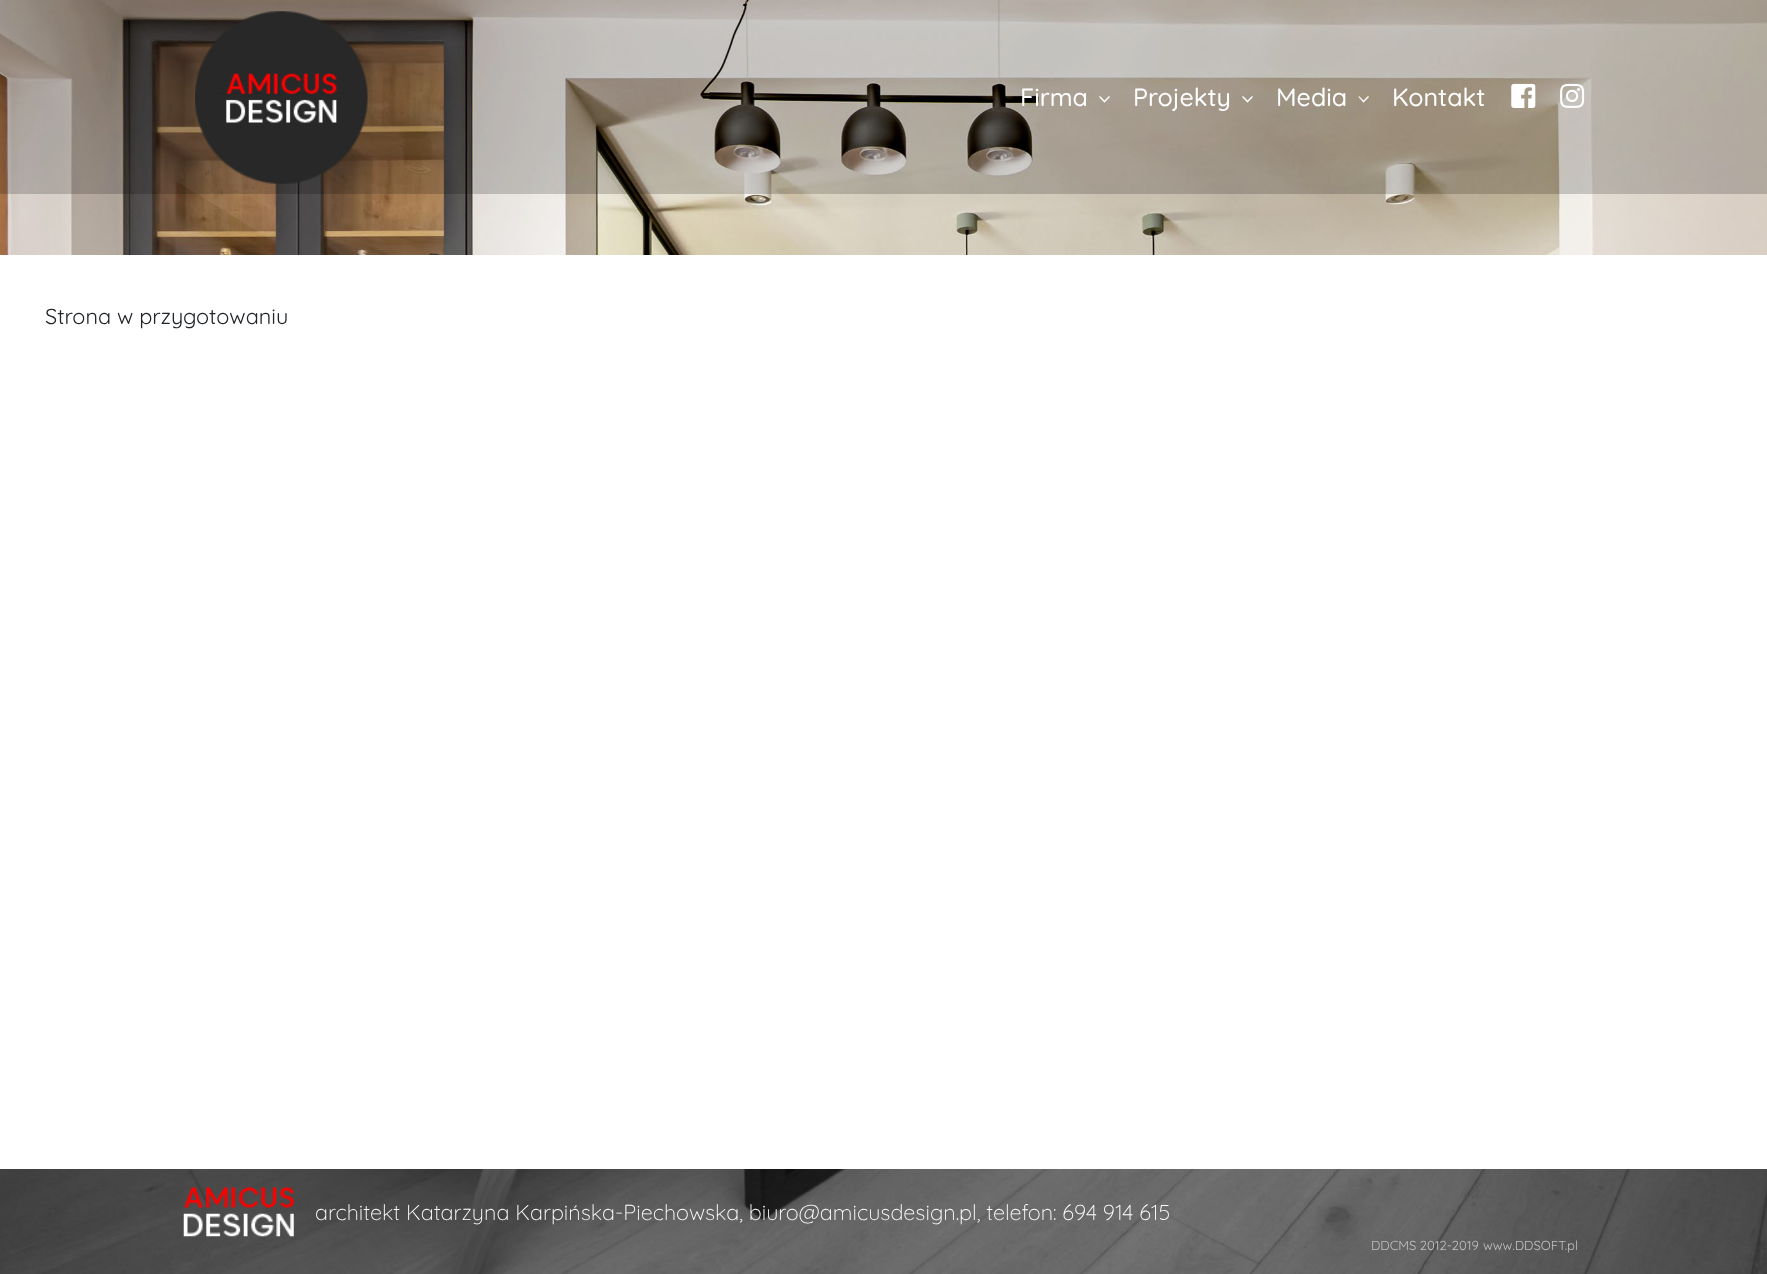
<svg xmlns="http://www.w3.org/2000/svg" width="1767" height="1274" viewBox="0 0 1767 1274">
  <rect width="100%" height="100%" fill="rgb(255,255,255)"/>
  <image x="0" y="0" width="1767" height="255" href="pic1.png"/>
  <rect x="0" y="0" width="1767" height="194" fill="rgba(0,0,0,0.18)"/>
  <image x="195" y="11" width="173" height="173" href="pic2.png"/>
  <text x="1020" y="106" font-family="Quicksand" font-size="25" font-weight="500" fill="rgb(255,255,255)">Firma</text>
  <path d="M1109 96L1110 97L1104.5 102.5L1103.5 101.5Z" fill="rgb(255,255,255)"/>
  <path d="M1100 96L1105.5 101.5L1104.5 102.5L1099 97Z" fill="rgb(255,255,255)"/>
  <text x="1133" y="106" font-family="Quicksand" font-size="25" font-weight="500" fill="rgb(255,255,255)">Projekty</text>
  <path d="M1252 96L1253 97L1247.5 102.5L1246.5 101.5Z" fill="rgb(255,255,255)"/>
  <path d="M1243 96L1248.5 101.5L1247.5 102.5L1242 97Z" fill="rgb(255,255,255)"/>
  <text x="1276" y="106" font-family="Quicksand" font-size="25" font-weight="500" fill="rgb(255,255,255)">Media</text>
  <path d="M1368 96L1369 97L1363.5 102.5L1362.5 101.5Z" fill="rgb(255,255,255)"/>
  <path d="M1359 96L1364.5 101.5L1363.5 102.5L1358.5 97Z" fill="rgb(255,255,255)"/>
  <text x="1392" y="106" font-family="Quicksand" font-size="25" font-weight="500" fill="rgb(255,255,255)">Kontakt</text>
  <image x="1511" y="83" width="25" height="25" href="pic3.png"/>
  <image x="1560" y="83" width="25" height="25" href="pic4.png"/>
  <text x="45" y="324" font-family="Quicksand" font-size="21.65" fill="rgb(33,37,41)">Strona w przygotowaniu</text>
  <image x="0" y="1169" width="1767" height="105" href="pic5.png"/>
  <image x="183" y="1187" width="111" height="50" href="pic6.png"/>
  <text x="315" y="1220" font-family="Quicksand" font-size="21.65" font-weight="300" fill="rgb(255,255,255)">architekt Katarzyna Karpińska-Piechowska, biuro@amicusdesign.pl, telefon: 694 914 615</text>
  <g font-family="Quicksand" font-size="13" fill="rgb(192,192,192)">
    <text x="1371" y="1250">DDCMS 2012-2019</text>
    <text x="1483" y="1250">www.DDSOFT.pl</text>
  </g>
</svg>
